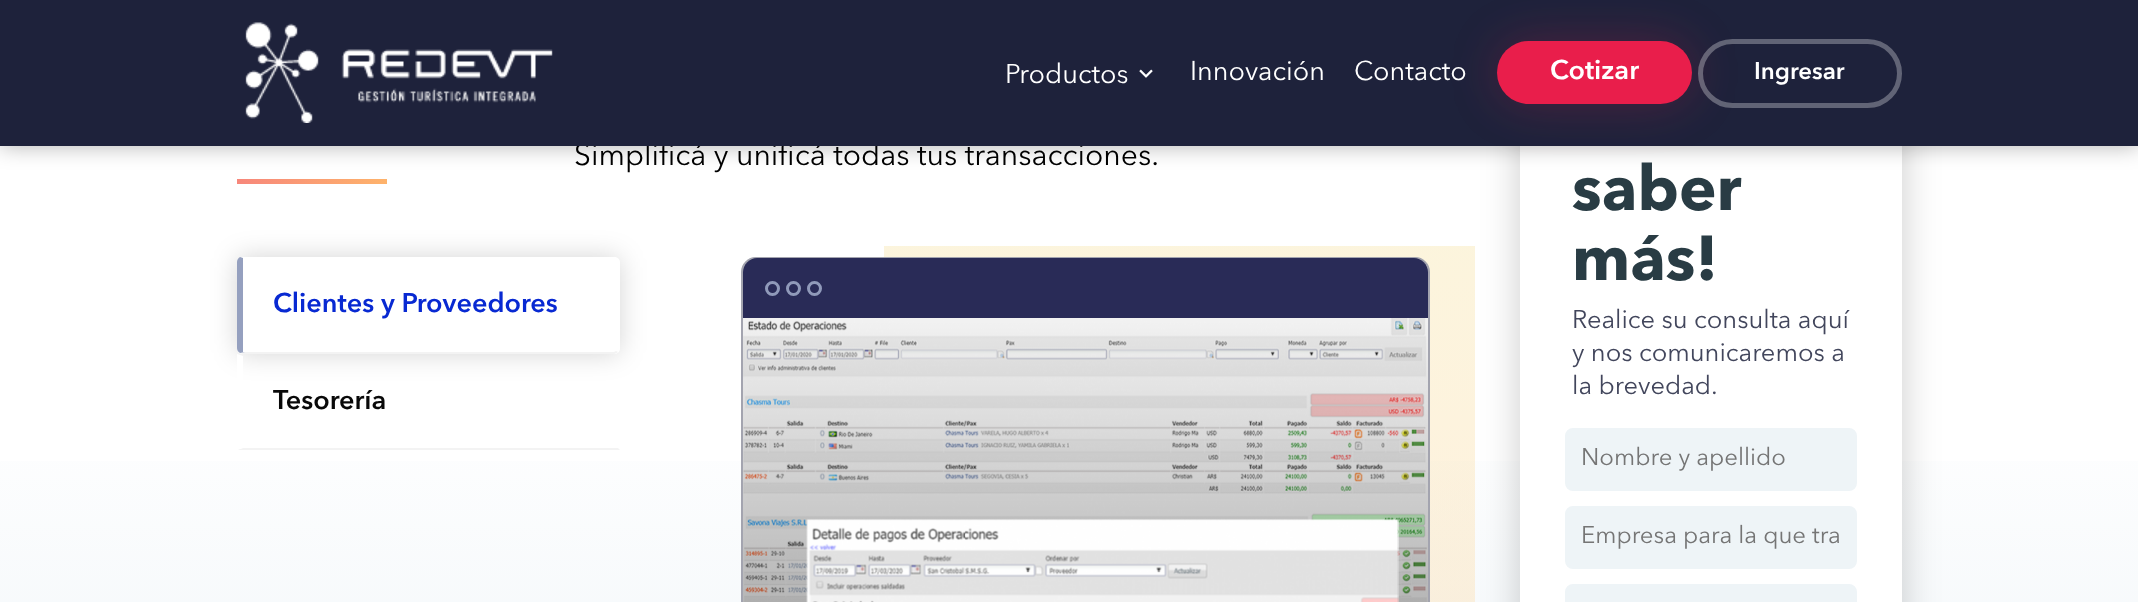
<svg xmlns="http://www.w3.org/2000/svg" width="2138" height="602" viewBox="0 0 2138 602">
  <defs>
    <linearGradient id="g1" gradientUnits="userSpaceOnUse" x1="237" y1="181" x2="387" y2="181"><stop offset="0" stop-color="rgb(247,135,123)"/><stop offset="1" stop-color="rgb(254,179,107)"/></linearGradient>
    <linearGradient id="g2" gradientUnits="userSpaceOnUse" x1="1227" y1="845" x2="1227" y2="395"><stop offset="0" stop-color="rgb(238,244,248)"/><stop offset="1" stop-color="rgb(255,255,255)"/></linearGradient>
    <linearGradient id="g3" gradientUnits="userSpaceOnUse" x1="1179" y1="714" x2="1179" y2="246"><stop offset="0" stop-color="rgb(255,220,175)" stop-opacity="0.4"/><stop offset="1" stop-color="rgb(247,228,169)" stop-opacity="0.4"/></linearGradient>
    <clipPath id="clip1"><path d="M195 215H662V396H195ZM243 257H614C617.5 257 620 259.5 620 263V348C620 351.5 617.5 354 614 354H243C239.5 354 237 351.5 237 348V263C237 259.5 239.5 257 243 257Z" clip-rule="evenodd"/></clipPath>
    <linearGradient id="g4" gradientUnits="userSpaceOnUse" x1="1085" y1="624" x2="1085" y2="258"><stop offset="0" stop-color="rgb(0,0,0)" stop-opacity="0.3"/><stop offset="1" stop-color="rgb(0,0,0)" stop-opacity="0"/></linearGradient>
  </defs>
  <rect width="100%" height="100%" fill="rgb(255,255,255)"/>
  <rect x="237" y="179" width="150" height="5" fill="url(#g1)"/>
  <rect x="0" y="461" width="2138" height="141" fill="url(#g2)"/>
  <rect x="884" y="246" width="591" height="356" fill="url(#g3)"/>
  <rect x="1520" y="45" width="382" height="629" rx="15" fill="rgba(0,0,0,0.2)" filter="blur(19px)"/>
  <rect x="1520" y="146" width="382" height="456" fill="rgb(255,255,255)"/>
  <rect x="0" y="0" width="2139" height="146" fill="rgba(0,0,0,0.3)" filter="blur(11px)"/>
  <text x="574" y="165" font-family="Avenir Next" font-size="30" fill="rgb(0,0,0)">Simplificá y unificá todas tus transacciones.</text>
  <rect x="0" y="0" width="2138" height="146" fill="rgb(30,34,59)"/>
  <image x="245" y="22" width="308" height="101" href="pic1.png"/>
  <text x="1005" y="83" font-family="Avenir Next" font-size="27" fill="rgb(255,255,255)">Productos</text>
  <image x="1139" y="69" width="14" height="9" href="pic2.png"/>
  <text x="1190" y="80" font-family="Avenir Next" font-size="27" fill="rgb(255,255,255)">Innovación</text>
  <rect x="1497" y="41" width="195" height="63" rx="31.5" fill="rgba(233,30,75,0.23)" filter="blur(24px)"/>
  <text x="1354" y="80" font-family="Avenir Next" font-size="27" fill="rgb(255,255,255)">Contacto</text>
  <rect x="1497" y="41" width="195" height="63" rx="31.5" fill="rgb(233,30,75)"/>
  <text x="1550" y="79" font-family="Avenir Next" font-size="27" font-weight="600" fill="rgb(255,255,255)">Cotizar</text>
  <rect x="1700.5" y="41.5" width="199" height="64" rx="32" fill="none" stroke="rgba(255,255,255,0.3)" stroke-width="5"/>
  <text x="1754" y="79" font-family="Avenir Next" font-size="24" font-weight="600" fill="rgb(255,255,255)">Ingresar</text>
  <g clip-path="url(#clip1)">
    <rect x="237" y="257" width="383" height="97" rx="6" fill="rgba(0,0,0,0.17)" filter="blur(13.5px)"/>
  </g>
  <rect x="237" y="257" width="383" height="97" rx="6" fill="rgba(255,255,255,0.9)"/>
  <path d="M243 354H614C615 354 617 353 618 352L616 351L614 352H245L240 353Z" fill="rgb(243,243,243)"/>
  <path d="M243 258L240 257C238 258 237 260 237 262V348C237 350 238 352 240 353L245 352H243Z" fill="rgb(149,160,191)"/>
  <text x="273" y="312" font-family="Avenir Next" font-size="27" font-weight="600" fill="rgb(8,41,210)">Clientes y Proveedores</text>
  <path d="M620 450H237L243 448H618Z" fill="rgb(243,243,243)"/>
  <path d="M237 450V354L243 356V448Z" fill="rgb(255,255,255)"/>
  <text x="273" y="409" font-family="Avenir Next" font-size="27" font-weight="600" fill="rgb(9,9,9)">Tesorería</text>
  <rect x="741" y="257" width="689" height="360" rx="15" fill="rgb(204,204,204)"/>
  <rect x="742" y="258" width="687" height="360" rx="14" fill="none" stroke="rgba(41,43,87,0.25)" stroke-width="2"/>
  <path d="M757 258H1414C1421.5 258 1428 264.5 1428 272V318H743V272C743 264.5 749.5 258 757 258Z" fill="rgb(41,43,87)"/>
  <circle cx="772.5" cy="288.5" r="6" fill="none" stroke="rgb(144,154,186)" stroke-width="3"/>
  <circle cx="793.5" cy="288.5" r="6" fill="none" stroke="rgb(144,154,186)" stroke-width="3"/>
  <circle cx="814.5" cy="288.5" r="6" fill="none" stroke="rgb(144,154,186)" stroke-width="3"/>
  <image x="743" y="318" width="685" height="284" href="pic3.png"/>
  <rect x="743" y="318" width="685" height="284" fill="url(#g4)"/>
  <image x="806" y="518" width="593" height="84" href="pic4.png"/>
  <g font-family="Avenir Next" font-size="63" font-weight="bold" fill="rgb(41,60,68)">
    <text>
      <tspan x="1572" y="210">saber</tspan>
      <tspan x="1572" y="280">más!</tspan>
    </text>
  </g>
  <g font-family="Avenir Next" font-size="25.5" fill="rgb(66,70,92)">
    <text>
      <tspan x="1572" y="328">Realice su consulta aquí</tspan>
      <tspan x="1572" y="361">y nos comunicaremos a</tspan>
      <tspan x="1572" y="394">la brevedad.</tspan>
    </text>
  </g>
  <rect x="1566" y="429" width="290" height="61" rx="7" fill="rgb(238,244,247)" stroke="rgb(238,244,247)" stroke-width="2"/>
  <text x="1581" y="465" font-family="Avenir Next" font-size="24" fill="rgb(117,117,117)">Nombre y apellido</text>
  <rect x="1566" y="507" width="290" height="61" rx="7" fill="rgb(238,244,247)" stroke="rgb(238,244,247)" stroke-width="2"/>
  <text x="1581" y="543" font-family="Avenir Next" font-size="24" fill="rgb(117,117,117)">Empresa para la que tra</text>
  <rect x="1566" y="585" width="290" height="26" rx="7" fill="rgb(238,244,247)" stroke="rgb(238,244,247)" stroke-width="2"/>
</svg>
